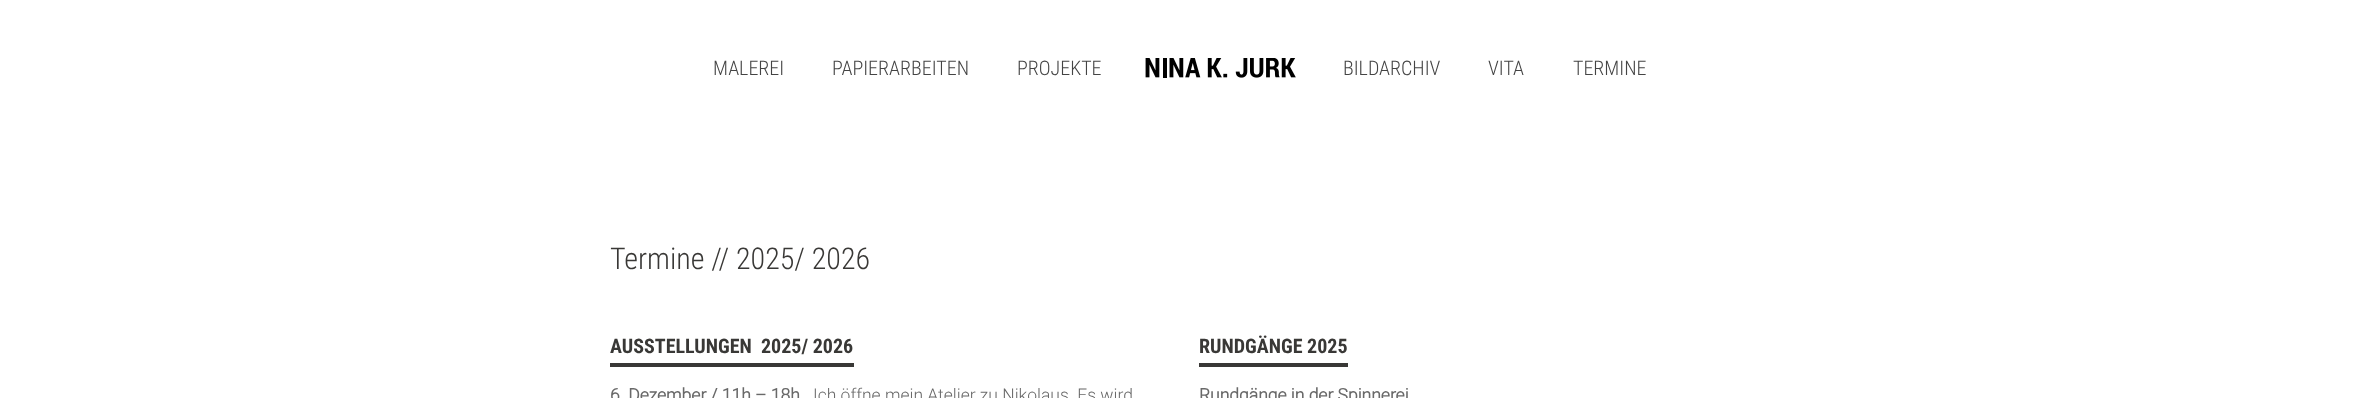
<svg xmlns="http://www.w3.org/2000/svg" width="2359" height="398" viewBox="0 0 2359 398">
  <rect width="100%" height="100%" fill="rgb(255,255,255)"/>
  <g font-family="Roboto Condensed" font-size="20" font-weight="300" fill="rgb(68,68,68)">
    <text x="713" y="75">MALEREI</text>
    <text x="832" y="75">PAPIERARBEITEN</text>
    <text x="1017" y="75">PROJEKTE</text>
  </g>
  <image x="1145" y="58" width="151" height="20" href="pic1.png"/>
  <g font-family="Roboto Condensed" font-size="20" font-weight="300" fill="rgb(68,68,68)">
    <text x="1343" y="75">BILDARCHIV</text>
    <text x="1488" y="75">VITA</text>
    <text x="1573" y="75">TERMINE</text>
  </g>
  <text x="610" y="269" font-family="Roboto Condensed" font-size="30" font-weight="300" fill="rgb(57,56,54)">Termine // 2025/ 2026</text>
  <text x="610" y="353" font-family="Roboto Condensed" font-size="20" font-weight="bold" fill="rgb(57,56,54)" xml:space="preserve">AUSSTELLUNGEN  2025/ 2026</text>
  <rect x="610" y="363" width="244" height="4" fill="rgb(57,56,54)"/>
  <text x="610" y="401" font-family="Roboto" font-size="17.5" font-weight="bold" fill="rgb(105,105,105)">6. Dezember / 11h – 18h</text>
  <text x="813" y="401" font-family="Roboto" font-size="17.5" font-weight="300" fill="rgb(105,105,105)">Ich öffne mein Atelier zu Nikolaus. Es wird</text>
  <text x="1199" y="353" font-family="Roboto Condensed" font-size="20" font-weight="bold" fill="rgb(57,56,54)">RUNDGÄNGE 2025</text>
  <rect x="1199" y="363" width="149" height="4" fill="rgb(57,56,54)"/>
  <text x="1199" y="401" font-family="Roboto" font-size="17.5" font-weight="bold" fill="rgb(105,105,105)">Rundgänge in der Spinnerei</text>
</svg>
